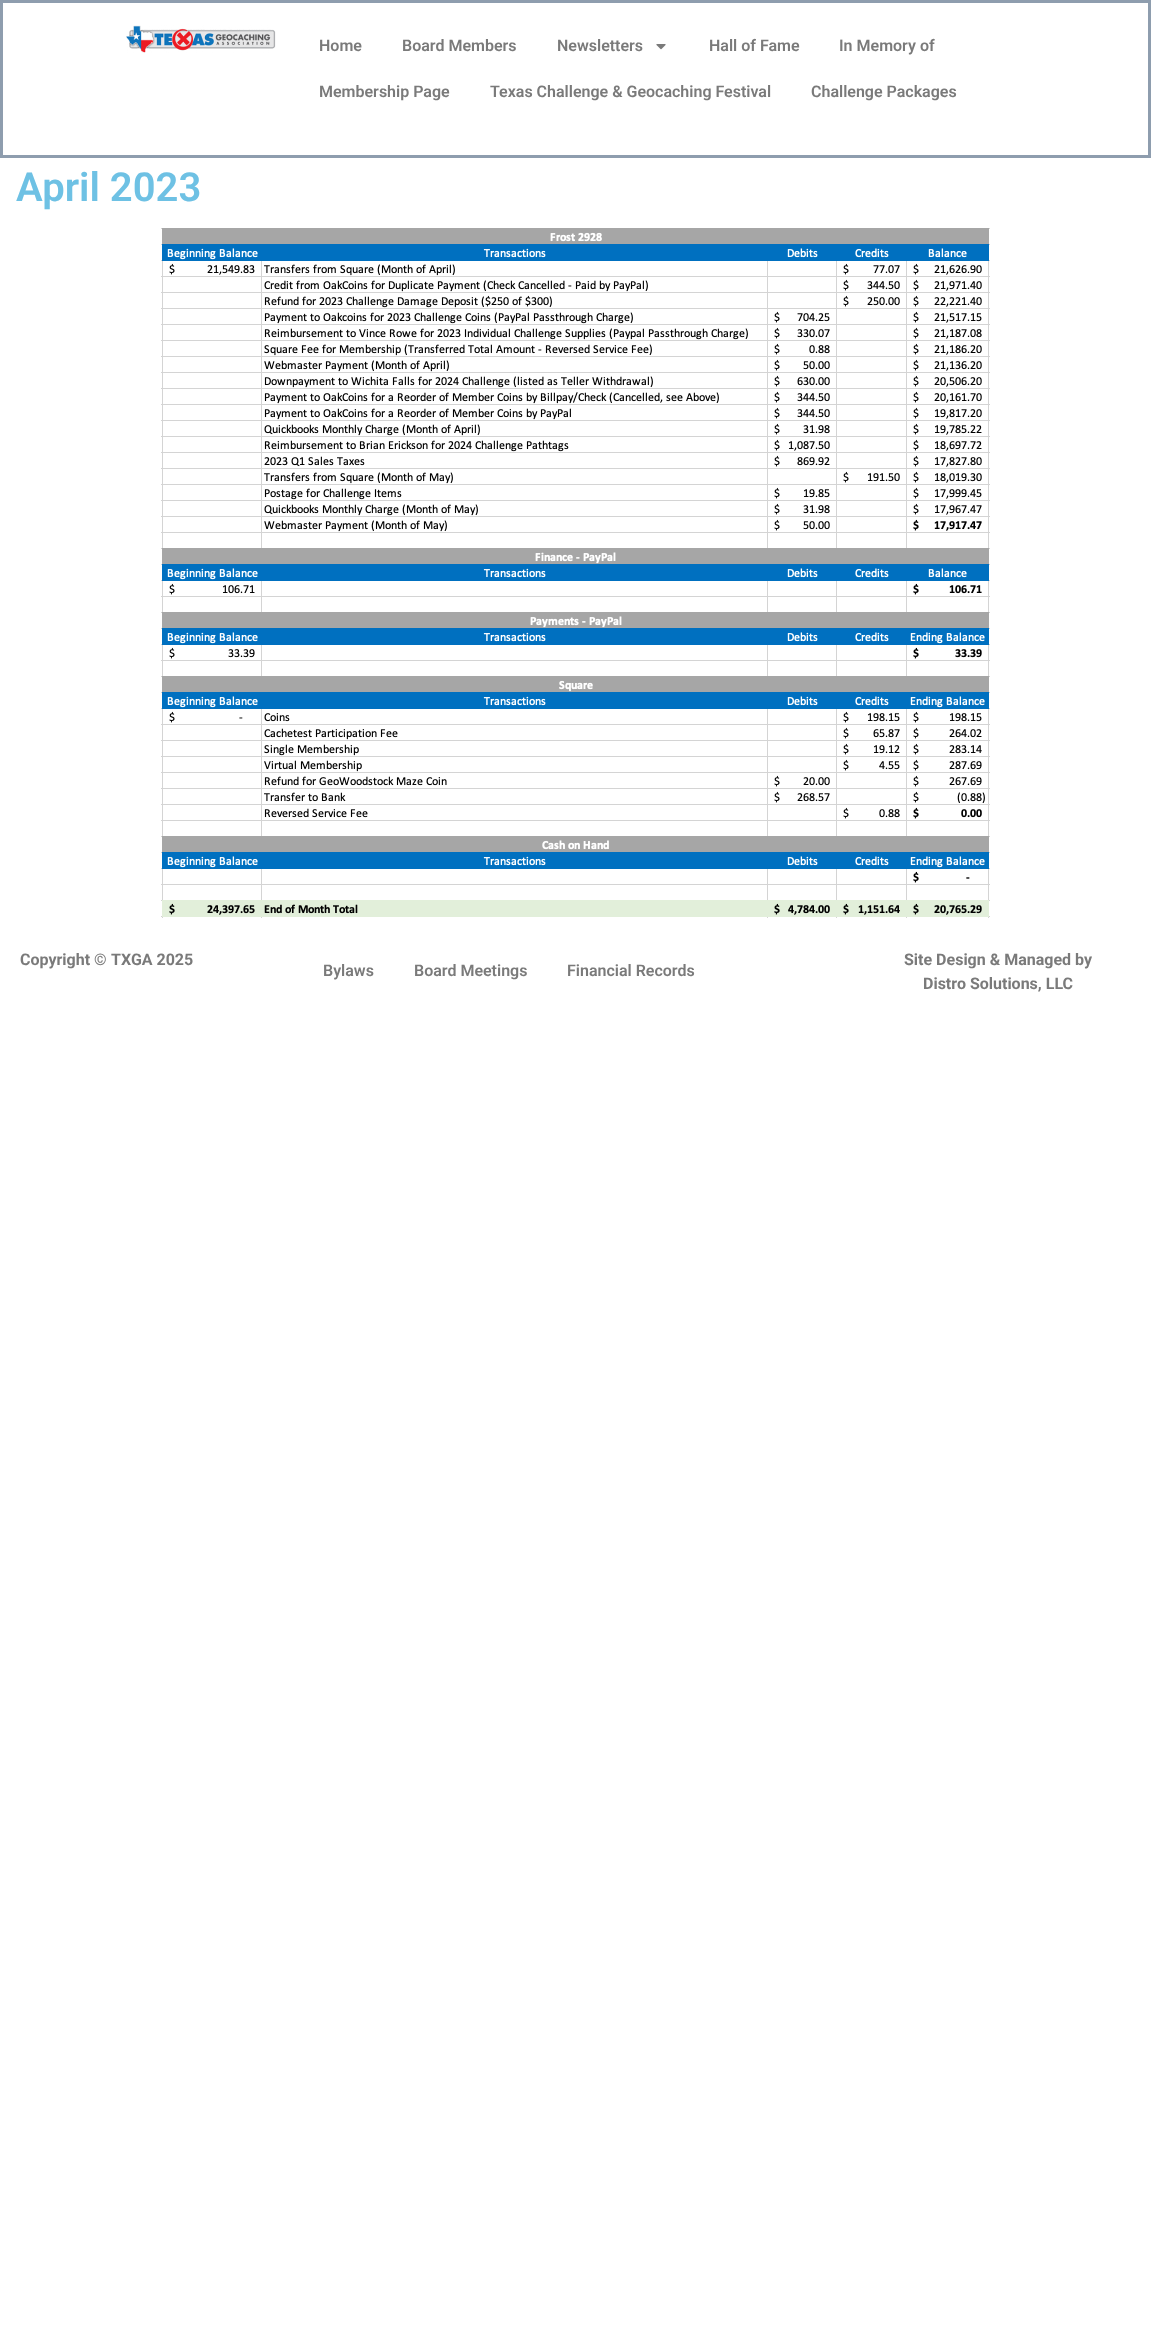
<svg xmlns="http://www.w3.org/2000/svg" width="1151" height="2350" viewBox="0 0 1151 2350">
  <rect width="100%" height="100%" fill="rgb(255,255,255)"/>
  <rect x="1.5" y="1.5" width="1148" height="155" fill="none" stroke="rgb(142,157,174)" stroke-width="3"/>
  <image x="126" y="25" width="150" height="28" href="pic1.png"/>
  <g font-family="Roboto" font-size="16" font-weight="600" fill="rgb(122,122,122)">
    <text x="319" y="51">Home</text>
    <text x="402" y="51">Board Members</text>
    <text x="557" y="51">Newsletters</text>
  </g>
  <image x="656" y="44" width="10" height="6" href="pic2.png"/>
  <g font-family="Roboto" font-size="16" font-weight="600" fill="rgb(122,122,122)">
    <text x="709" y="51">Hall of Fame</text>
    <text x="839" y="51">In Memory of</text>
    <text x="319" y="97">Membership Page</text>
    <text x="490" y="97">Texas Challenge &amp; Geocaching Festival</text>
    <text x="811" y="97">Challenge Packages</text>
  </g>
  <text x="16" y="201" font-family="Roboto" font-size="40" font-weight="600" fill="rgb(110,193,228)">April 2023</text>
  <image x="161" y="228" width="829" height="690" href="pic3.png"/>
  <text x="20" y="965" font-family="Roboto" font-size="16" font-weight="bold" fill="rgb(122,122,122)">Copyright</text>
  <text x="94" y="965" font-family="Roboto" font-size="16" fill="rgb(122,122,122)">©</text>
  <text x="111" y="965" font-family="Roboto" font-size="16" font-weight="bold" fill="rgb(122,122,122)">TXGA 2025</text>
  <g font-family="Roboto" font-size="16" font-weight="600" fill="rgb(122,122,122)">
    <text x="323" y="976">Bylaws</text>
    <text x="414" y="976">Board Meetings</text>
    <text x="567" y="976">Financial Records</text>
  </g>
  <g font-family="Roboto" font-size="16" font-weight="bold" fill="rgb(122,122,122)">
    <text x="904" y="965">Site Design &amp; Managed by</text>
    <text x="923" y="989">Distro Solutions, LLC</text>
  </g>
</svg>
